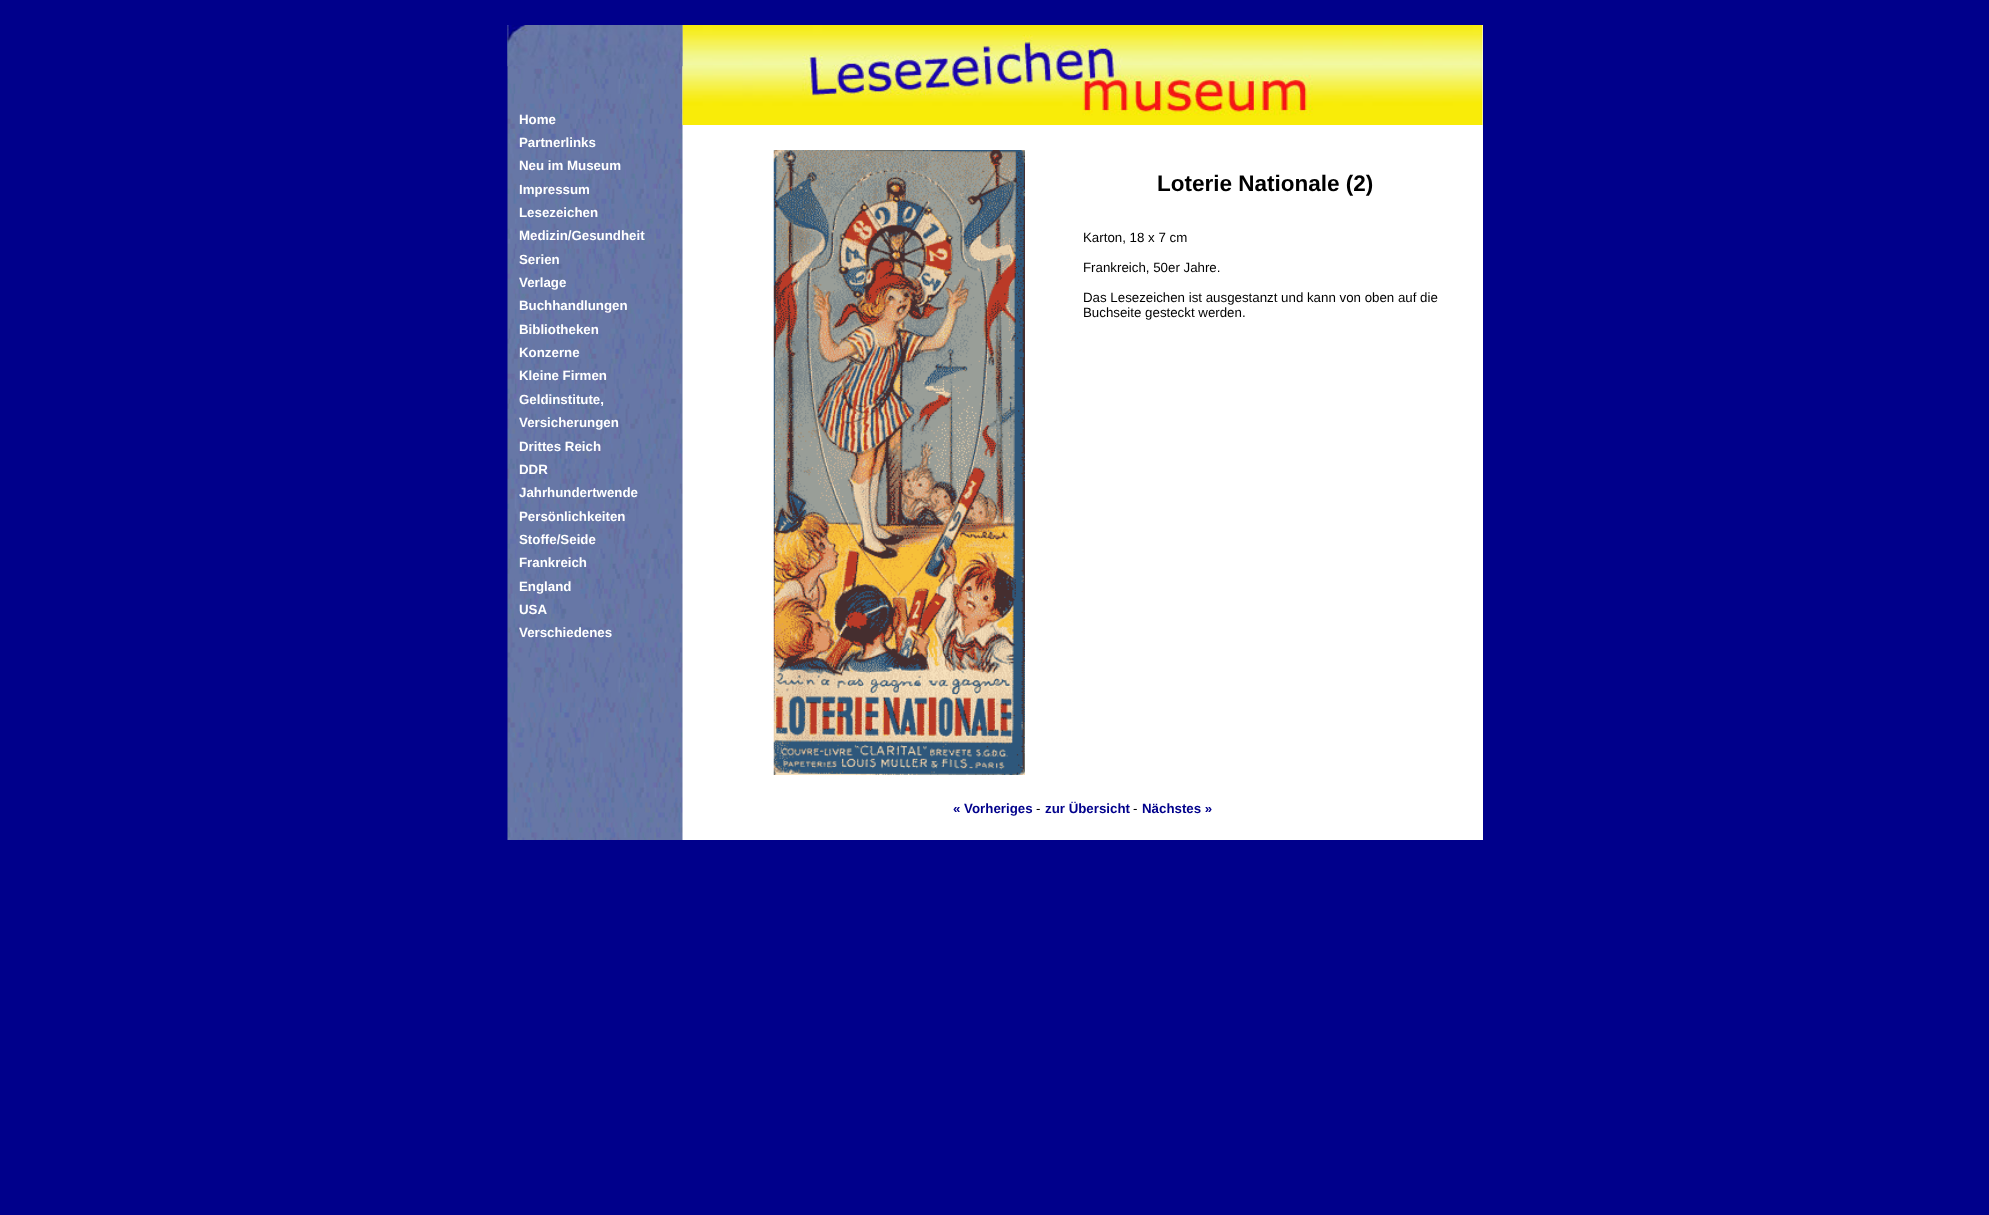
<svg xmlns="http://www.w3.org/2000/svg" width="1989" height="1215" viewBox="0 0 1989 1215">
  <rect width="100%" height="100%" fill="rgb(0,0,139)"/>
  <rect x="682" y="25" width="801" height="815" fill="rgb(255,255,255)"/>
  <image x="507" y="25" width="176" height="815" href="pic1.png"/>
  <image x="682" y="25" width="801" height="100" href="pic3.png"/>
  <image x="507" y="25" width="176" height="42" href="pic2.png"/>
  <g font-family="Liberation Sans" font-size="13.3" font-weight="bold" fill="rgb(255,255,255)">
    <text>
      <tspan x="519" y="124">Home</tspan>
      <tspan x="519" y="147">Partnerlinks</tspan>
      <tspan x="519" y="170">Neu im Museum</tspan>
      <tspan x="519" y="194">Impressum</tspan>
      <tspan x="519" y="217">Lesezeichen</tspan>
      <tspan x="519" y="240">Medizin/Gesundheit</tspan>
      <tspan x="519" y="264">Serien</tspan>
      <tspan x="519" y="287">Verlage</tspan>
      <tspan x="519" y="310">Buchhandlungen</tspan>
      <tspan x="519" y="334">Bibliotheken</tspan>
      <tspan x="519" y="357">Konzerne</tspan>
      <tspan x="519" y="380">Kleine Firmen</tspan>
      <tspan x="519" y="404">Geldinstitute,</tspan>
      <tspan x="519" y="427">Versicherungen</tspan>
      <tspan x="519" y="451">Drittes Reich</tspan>
      <tspan x="519" y="474">DDR</tspan>
      <tspan x="519" y="497">Jahrhundertwende</tspan>
      <tspan x="519" y="521">Persönlichkeiten</tspan>
      <tspan x="519" y="544">Stoffe/Seide</tspan>
      <tspan x="519" y="567">Frankreich</tspan>
      <tspan x="519" y="591">England</tspan>
      <tspan x="519" y="614">USA</tspan>
      <tspan x="519" y="637">Verschiedenes</tspan>
    </text>
  </g>
  <image x="773" y="150" width="252" height="625" href="pic4.png"/>
  <text x="1157" y="191" font-family="Liberation Sans" font-size="22.5" font-weight="bold" fill="rgb(0,0,0)">Loterie Nationale (2)</text>
  <g font-family="Liberation Sans" font-size="13.3" fill="rgb(0,0,0)">
    <text x="1083" y="242">Karton, 18 x 7 cm</text>
    <text x="1083" y="272">Frankreich, 50er Jahre.</text>
    <text>
      <tspan x="1083" y="302">Das Lesezeichen ist ausgestanzt und kann von oben auf die</tspan>
      <tspan x="1083" y="317">Buchseite gesteckt werden.</tspan>
    </text>
  </g>
  <text x="953" y="813" font-family="Liberation Sans" font-size="13.3" font-weight="bold" fill="rgb(0,0,139)">« Vorheriges</text>
  <text x="1036" y="813" font-family="Liberation Sans" font-size="13.3" fill="rgb(0,0,0)">-</text>
  <text x="1045" y="813" font-family="Liberation Sans" font-size="13.3" font-weight="bold" fill="rgb(0,0,139)">zur Übersicht</text>
  <text x="1133" y="813" font-family="Liberation Sans" font-size="13.3" fill="rgb(0,0,0)">-</text>
  <text x="1142" y="813" font-family="Liberation Sans" font-size="13.3" font-weight="bold" fill="rgb(0,0,139)">Nächstes »</text>
</svg>
